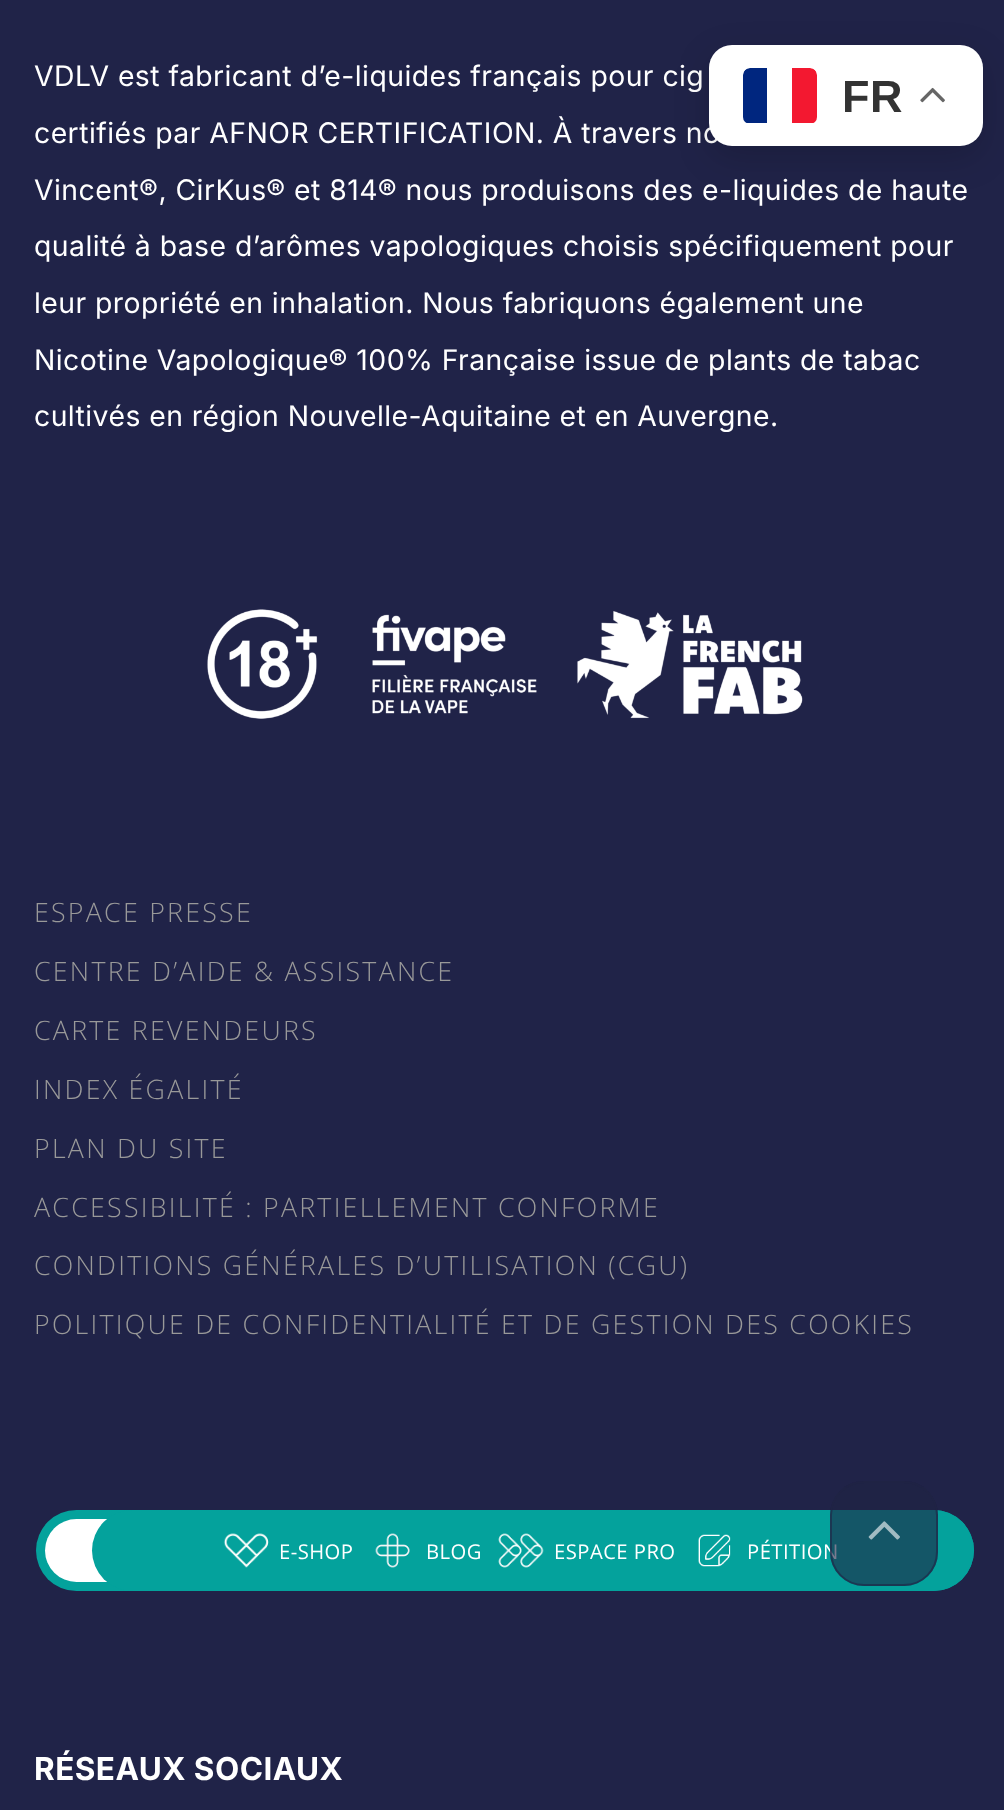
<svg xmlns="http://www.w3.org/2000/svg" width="1004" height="1810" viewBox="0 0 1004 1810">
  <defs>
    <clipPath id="clip1"><rect x="743" y="68" width="74" height="56" rx="7"/></clipPath>
  </defs>
  <rect width="100%" height="100%" fill="rgb(32,35,72)"/>
  <g font-family="Inter" font-size="28.35" letter-spacing="0.45" fill="rgb(255,255,255)">
    <text x="34" y="86">VDLV est fabricant d’e-liquides français pour cig</text>
    <text x="34" y="143">certifiés par AFNOR CERTIFICATION. À travers no</text>
    <text>
      <tspan x="34" y="200">Vincent®, CirKus® et 814® nous produisons des e-liquides de haute</tspan>
      <tspan x="34" y="256">qualité à base d’arômes vapologiques choisis spécifiquement pour</tspan>
    </text>
    <text x="34" y="313">leur propriété en inhalation. Nous fabriquons également une</text>
    <text>
      <tspan x="34" y="370">Nicotine Vapologique® 100% Française issue de plants de tabac</tspan>
      <tspan x="34" y="426">cultivés en région Nouvelle-Aquitaine et en Auvergne.</tspan>
    </text>
  </g>
  <image x="207" y="609" width="596" height="110" href="pic1.png"/>
  <g font-family="Open Sans" font-size="26.75" font-weight="300" letter-spacing="2.25" fill="rgb(153,153,153)">
    <text x="34" y="922">ESPACE PRESSE</text>
    <text x="34" y="981">CENTRE D’AIDE &amp; ASSISTANCE</text>
    <text x="34" y="1040">CARTE REVENDEURS</text>
    <text x="34" y="1099">INDEX ÉGALITÉ</text>
    <text x="34" y="1158">PLAN DU SITE</text>
    <text x="34" y="1217">ACCESSIBILITÉ : PARTIELLEMENT CONFORME</text>
    <text x="34" y="1275">CONDITIONS GÉNÉRALES D’UTILISATION (CGU)</text>
    <text x="34" y="1334">POLITIQUE DE CONFIDENTIALITÉ ET DE GESTION DES COOKIES</text>
  </g>
  <rect x="36" y="1510" width="938" height="81" rx="40.5" fill="rgb(4,162,156)"/>
  <rect x="45" y="1519" width="135" height="63" rx="31.5" fill="rgb(255,255,255)"/>
  <rect x="92" y="1510" width="882" height="81" rx="40.5" fill="rgb(4,162,156)"/>
  <image x="223" y="1533" width="46" height="35" href="pic2.png"/>
  <text x="279" y="1559" font-family="Open Sans" font-size="20.25" letter-spacing="0.45" fill="rgb(255,255,255)">E-SHOP</text>
  <image x="375" y="1533" width="35" height="35" href="pic3.png"/>
  <text x="426" y="1559" font-family="Open Sans" font-size="20.25" letter-spacing="0.45" fill="rgb(255,255,255)">BLOG</text>
  <image x="498" y="1533" width="46" height="35" href="pic4.png"/>
  <text x="554" y="1559" font-family="Open Sans" font-size="20.25" letter-spacing="0.45" fill="rgb(255,255,255)">ESPACE PRO</text>
  <image x="698" y="1534" width="33" height="33" href="pic5.png"/>
  <text x="747" y="1559" font-family="Open Sans" font-size="20.25" letter-spacing="0.45" fill="rgb(255,255,255)">PÉTITION</text>
  <text x="34" y="1780" font-family="Inter" font-size="31.5" font-weight="bold" letter-spacing="0.45" fill="rgb(255,255,255)">RÉSEAUX SOCIAUX</text>
  <rect x="709" y="56" width="274" height="102" rx="23" fill="rgba(0,0,0,0.15)" filter="blur(17px)"/>
  <rect x="709" y="45" width="274" height="101" rx="23" fill="rgb(255,255,255)"/>
  <g clip-path="url(#clip1)">
    <path d="M750 68H767V123H743V75C743 71 746 68 750 68Z" fill="rgb(0,38,127)"/>
    <path d="M792 68H810C814 68 817 71 817 75V123H792Z" fill="rgb(243,24,48)"/>
  </g>
  <text x="842" y="112" font-family="Liberation Sans" font-size="45" font-weight="bold" letter-spacing="0.45" fill="rgb(51,51,51)">FR</text>
  <image x="920" y="87" width="25" height="16" href="pic6.png"/>
  <rect x="830" y="1481" width="108" height="105" rx="34" fill="rgba(32,35,68,0.6)"/>
  <rect x="831" y="1482" width="106" height="103" rx="33" fill="none" stroke="rgba(32,35,68,0.6)" stroke-width="2"/>
  <image x="868" y="1521" width="32" height="19" href="pic7.png"/>
</svg>
